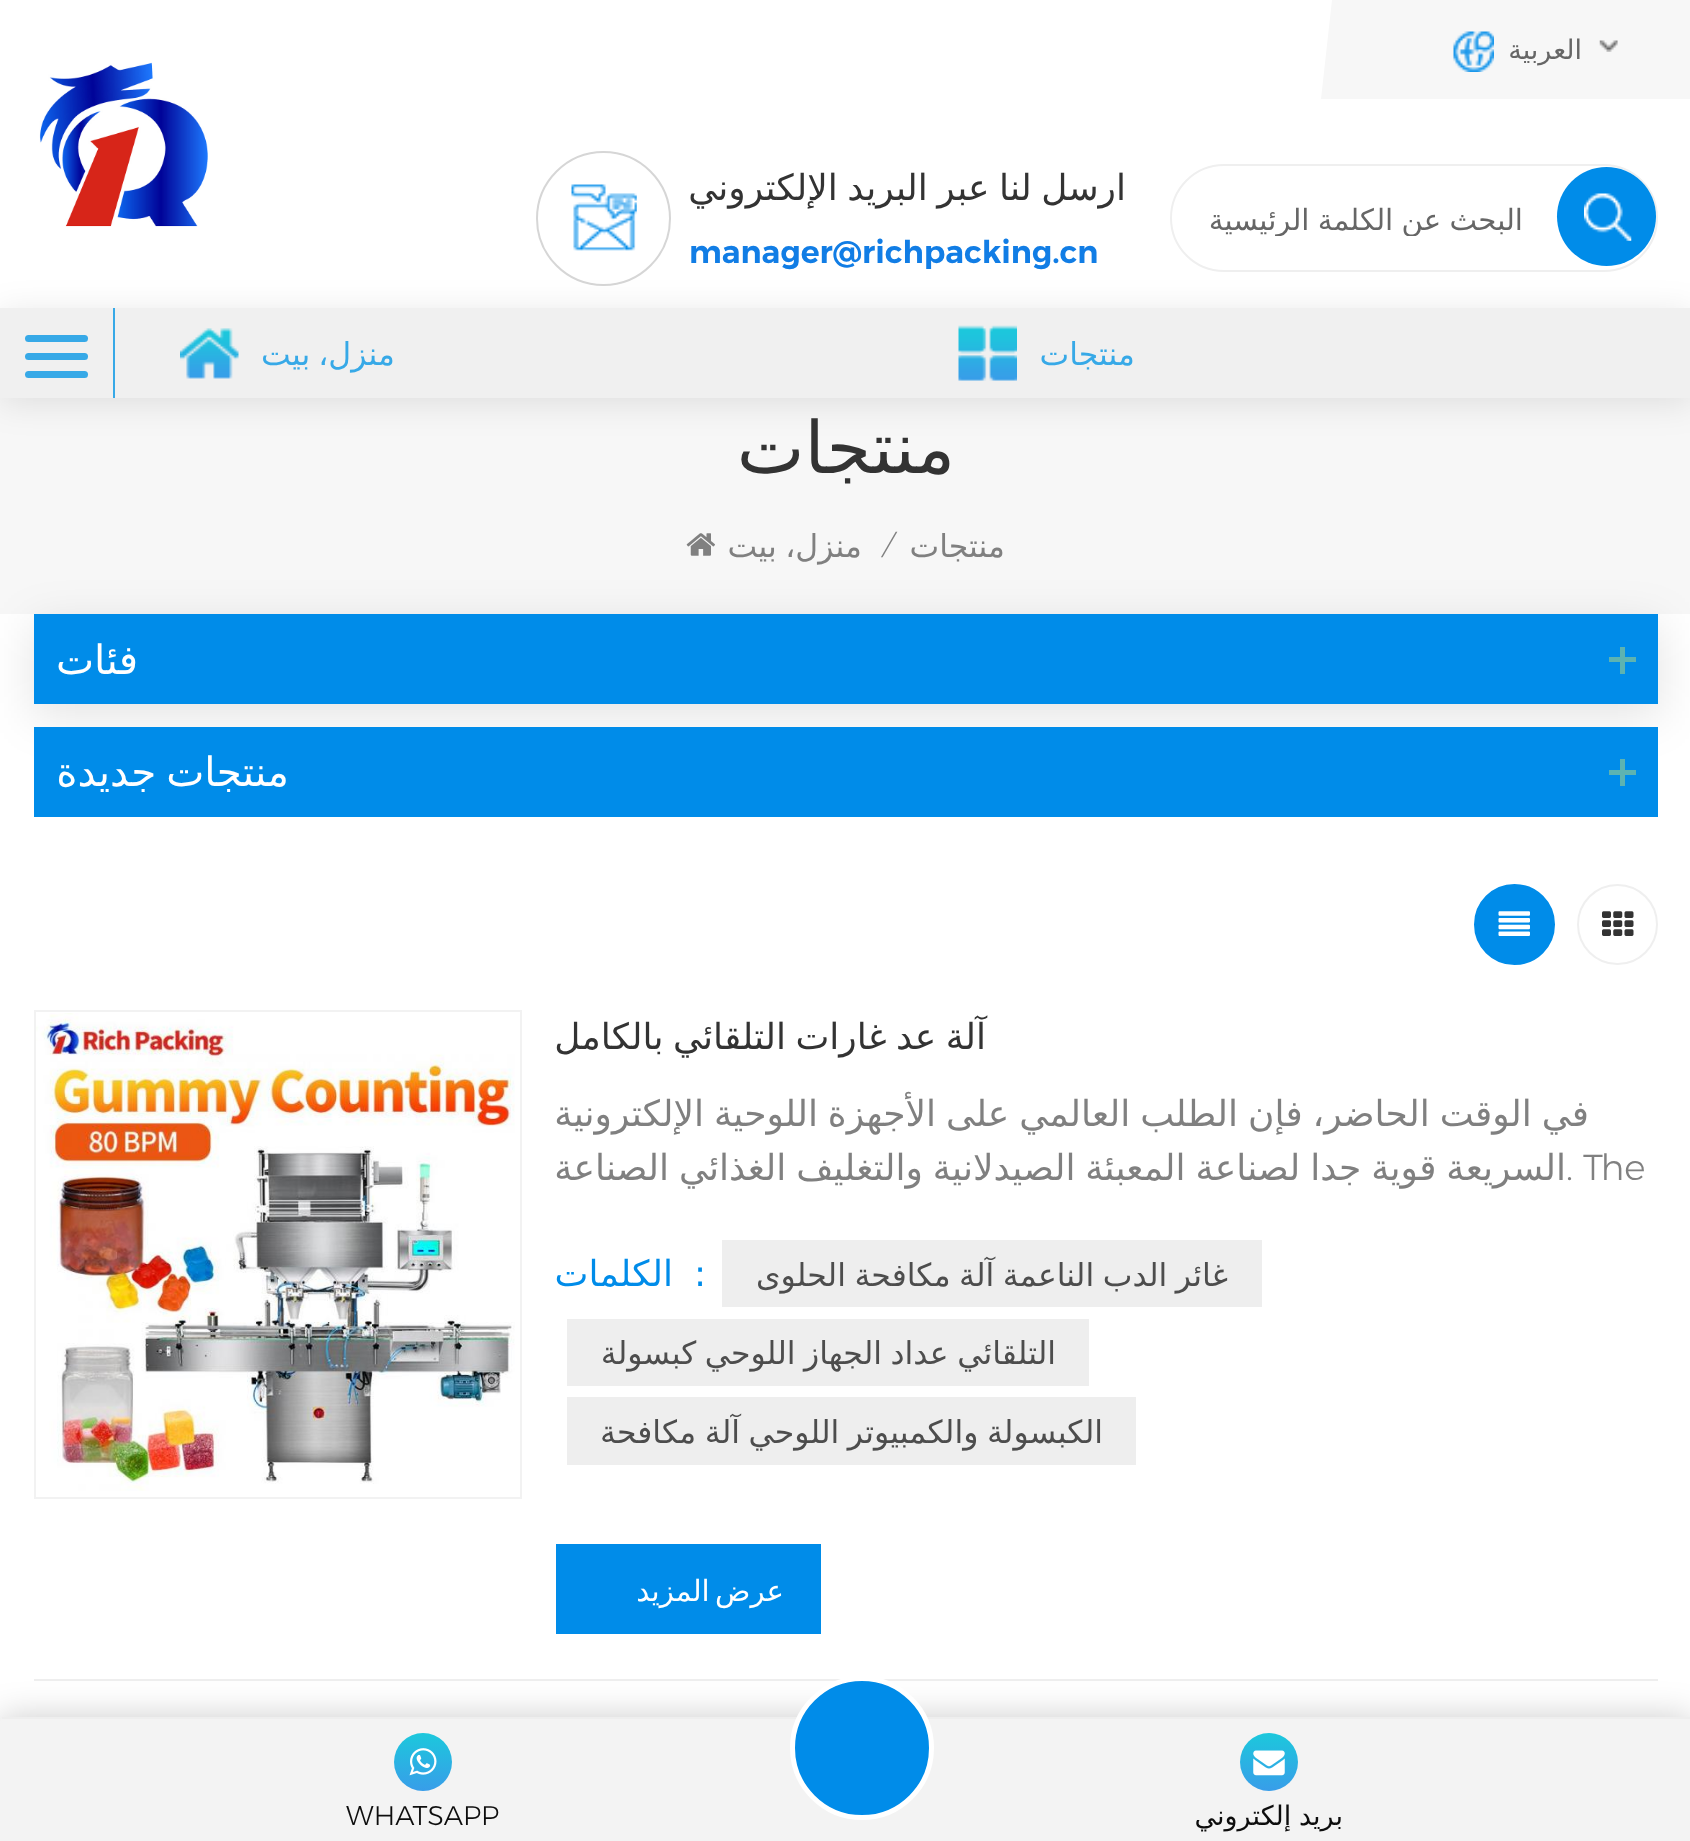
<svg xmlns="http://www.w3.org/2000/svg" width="1690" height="1841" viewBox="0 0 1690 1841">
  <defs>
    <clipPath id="clip1"><rect x="1208" y="200" width="363" height="36"/></clipPath>
    <linearGradient id="g1" gradientUnits="userSpaceOnUse" x1="1269" y1="1791" x2="1269" y2="1733"><stop offset="0" stop-color="rgb(56,157,233)"/><stop offset="1" stop-color="rgb(28,200,220)"/></linearGradient>
    <linearGradient id="g2" gradientUnits="userSpaceOnUse" x1="423" y1="1791" x2="423" y2="1733"><stop offset="0" stop-color="rgb(56,157,233)"/><stop offset="1" stop-color="rgb(28,200,220)"/></linearGradient>
  </defs>
  <rect width="100%" height="100%" fill="rgb(255,255,255)"/>
  <path d="M1332 0L1321 99H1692V0Z" fill="rgb(247,247,247)"/>
  <image x="1599" y="40" width="19" height="12" href="pic1.png"/>
  <text x="1582" y="59" font-family="DejaVu Sans" font-size="27" direction="rtl" fill="rgb(102,102,102)">العربية</text>
  <image x="1453" y="31" width="41" height="41" href="pic2.png"/>
  <rect x="1171" y="165" width="486" height="106" rx="53" fill="none" stroke="rgb(239,239,239)" stroke-width="2"/>
  <circle cx="1606.5" cy="216.5" r="49.5" fill="rgb(0,140,233)"/>
  <image x="1584" y="193" width="48" height="48" href="pic3.png"/>
  <g clip-path="url(#clip1)">
    <text x="1523" y="230" word-spacing="-1" font-family="DejaVu Sans" font-size="29.25" direction="rtl" fill="rgb(102,102,102)">البحث عن الكلمة الرئيسية</text>
  </g>
  <text x="1126" y="200" word-spacing="-2" font-family="DejaVu Sans" font-size="36" direction="rtl" fill="rgb(51,51,51)">ارسل لنا عبر البريد الإلكتروني</text>
  <text x="689" y="263" font-family="Montserrat" font-size="31.5" font-weight="600" fill="rgb(17,125,229)">manager@richpacking.cn</text>
  <circle cx="603.5" cy="218.5" r="66.5" fill="none" stroke="rgb(214,214,214)" stroke-width="2"/>
  <image x="571" y="184" width="66" height="67" href="pic4.png"/>
  <image x="39" y="62" width="169" height="165" href="pic5.png"/>
  <rect x="0" y="398" width="1690" height="216" fill="rgb(247,247,247)"/>
  <rect x="0" y="313" width="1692" height="90" fill="rgba(0,0,0,0.1)" filter="blur(17px)"/>
  <rect x="0" y="308" width="1690" height="90" fill="rgb(240,240,240)"/>
  <text x="1135" y="365" font-family="DejaVu Sans" font-size="31.5" direction="rtl" fill="rgb(55,169,231)">منتجات</text>
  <image x="958" y="325" width="59" height="56" href="pic6.png"/>
  <text x="395" y="365" word-spacing="-2" font-family="DejaVu Sans" font-size="31.5" direction="rtl" fill="rgb(55,169,231)">منزل، بيت</text>
  <image x="180" y="328" width="59" height="51" href="pic7.png"/>
  <rect x="113" y="308" width="2" height="90" fill="rgb(55,169,231)"/>
  <rect x="25" y="353" width="63" height="7" rx="3.5" fill="rgb(55,169,231)"/>
  <rect x="25" y="335" width="63" height="7" rx="3.5" fill="rgb(55,169,231)"/>
  <rect x="25" y="371" width="63" height="7" rx="3.5" fill="rgb(55,169,231)"/>
  <text x="955" y="473" font-family="DejaVu Sans" font-size="72" direction="rtl" fill="rgb(51,51,51)">منتجات</text>
  <text x="1005" y="557" font-family="DejaVu Sans" font-size="31.5" direction="rtl" fill="rgb(128,128,128)">منتجات</text>
  <text x="882" y="554" font-family="Montserrat" font-size="27" font-weight="300" font-style="italic" fill="rgb(128,128,128)">/</text>
  <text x="862" y="557" word-spacing="-1.5" font-family="DejaVu Sans" font-size="31.5" direction="rtl" fill="rgb(128,128,128)">منزل، بيت</text>
  <image x="686" y="533" width="29" height="23" href="pic8.png"/>
  <rect x="32" y="623" width="1629" height="95" fill="rgba(0,0,0,0.1)" filter="blur(22.5px)"/>
  <rect x="34" y="614" width="1624" height="90" fill="rgb(0,140,233)"/>
  <rect x="1609" y="657" width="27" height="5" fill="rgb(93,179,177)"/>
  <rect x="1620" y="647" width="5" height="27" fill="rgb(93,179,177)"/>
  <text x="138" y="674" font-family="DejaVu Sans" font-size="40.5" direction="rtl" fill="rgb(255,255,255)">فئات</text>
  <rect x="34" y="727" width="1624" height="90" fill="rgb(0,140,233)"/>
  <rect x="1609" y="770" width="27" height="5" fill="rgb(93,179,177)"/>
  <rect x="1620" y="759" width="5" height="27" fill="rgb(93,179,177)"/>
  <text x="289" y="786" word-spacing="-3" font-family="DejaVu Sans" font-size="40.5" direction="rtl" fill="rgb(255,255,255)">منتجات جديدة</text>
  <circle cx="1617.5" cy="924.5" r="39.5" fill="none" stroke="rgb(239,239,239)" stroke-width="2"/>
  <image x="1602" y="911" width="32" height="25" href="pic9.png"/>
  <circle cx="1514.5" cy="924.5" r="39.5" fill="rgb(0,140,233)" stroke="rgb(0,140,233)" stroke-width="2"/>
  <image x="1498" y="911" width="32" height="25" href="pic10.png"/>
  <rect x="34" y="1679" width="1624" height="2" fill="rgb(238,238,238)"/>
  <text x="986" y="1049" word-spacing="-2" font-family="DejaVu Sans" font-size="36" direction="rtl" fill="rgb(51,51,51)">آلة عد غارات التلقائي بالكامل</text>
  <g font-family="DejaVu Sans" font-size="36" direction="rtl" fill="rgb(128,128,128)">
    <text x="1589" y="1126" word-spacing="-1.5">في الوقت الحاضر، فإن الطلب العالمي على الأجهزة اللوحية الإلكترونية</text>
    <text x="1566" y="1180" word-spacing="-1.5">السريعة قوية جدا لصناعة المعبئة الصيدلانية والتغليف الغذائي الصناعة</text>
  </g>
  <text x="1566" y="1180" font-family="Montserrat" font-size="36" font-weight="300" fill="rgb(128,128,128)">. The</text>
  <rect x="722" y="1240" width="540" height="67" fill="rgb(238,238,238)"/>
  <text x="1228" y="1286" word-spacing="-1.5" font-family="DejaVu Sans" font-size="31.5" direction="rtl" fill="rgb(77,77,77)">غائر الدب الناعمة آلة مكافحة الحلوى</text>
  <text x="694" y="1286" font-family="DejaVu Sans" font-size="36" fill="rgb(0,140,233)">:</text>
  <text x="673" y="1286" font-family="DejaVu Sans" font-size="36" direction="rtl" fill="rgb(0,140,233)">الكلمات</text>
  <rect x="567" y="1319" width="522" height="67" fill="rgb(238,238,238)"/>
  <text x="1056" y="1364" word-spacing="-1.5" font-family="DejaVu Sans" font-size="31.5" direction="rtl" fill="rgb(77,77,77)">التلقائي عداد الجهاز اللوحي كبسولة</text>
  <rect x="567" y="1397" width="569" height="68" fill="rgb(238,238,238)"/>
  <text x="1103" y="1443" word-spacing="-1.5" font-family="DejaVu Sans" font-size="31.5" direction="rtl" fill="rgb(77,77,77)">الكبسولة والكمبيوتر اللوحي آلة مكافحة</text>
  <rect x="556" y="1544" width="265" height="90" fill="rgb(0,140,233)"/>
  <text x="784" y="1601" word-spacing="-4" font-family="DejaVu Sans" font-size="29.25" letter-spacing="2.25" direction="rtl" fill="rgb(255,255,255)">عرض المزيد</text>
  <rect x="35" y="1011" width="486" height="487" fill="none" stroke="rgb(242,242,242)" stroke-width="2"/>
  <image x="36" y="1013" width="479" height="478" href="pic11.png"/>
  <rect x="0" y="1717" width="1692" height="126" rx="5" fill="rgba(0,0,0,0.2)" filter="blur(17px)"/>
  <path d="M5 1717H1687C1690 1717 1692 1719 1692 1722V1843H0V1722C0 1719 2 1717 5 1717Z" fill="rgb(243,243,243)"/>
  <rect x="2" y="1717" width="1688" height="2" fill="rgb(238,238,238)"/>
  <circle cx="862" cy="1748" r="69.5" fill="rgb(0,140,233)" stroke="rgb(255,255,255)" stroke-width="5"/>
  <circle cx="1269" cy="1762" r="29" fill="url(#g1)"/>
  <image x="1253" y="1750" width="32" height="26" href="pic12.png"/>
  <text x="1343" y="1825" word-spacing="-1" font-family="DejaVu Sans" font-size="27" direction="rtl" fill="rgb(13,13,13)">بريد إلكتروني</text>
  <circle cx="423" cy="1762" r="29" fill="url(#g2)"/>
  <image x="409" y="1748" width="28" height="28" href="pic13.png"/>
  <text x="346" y="1825" font-family="Montserrat" font-size="27" font-weight="300" fill="rgb(13,13,13)">WHATSAPP</text>
</svg>
